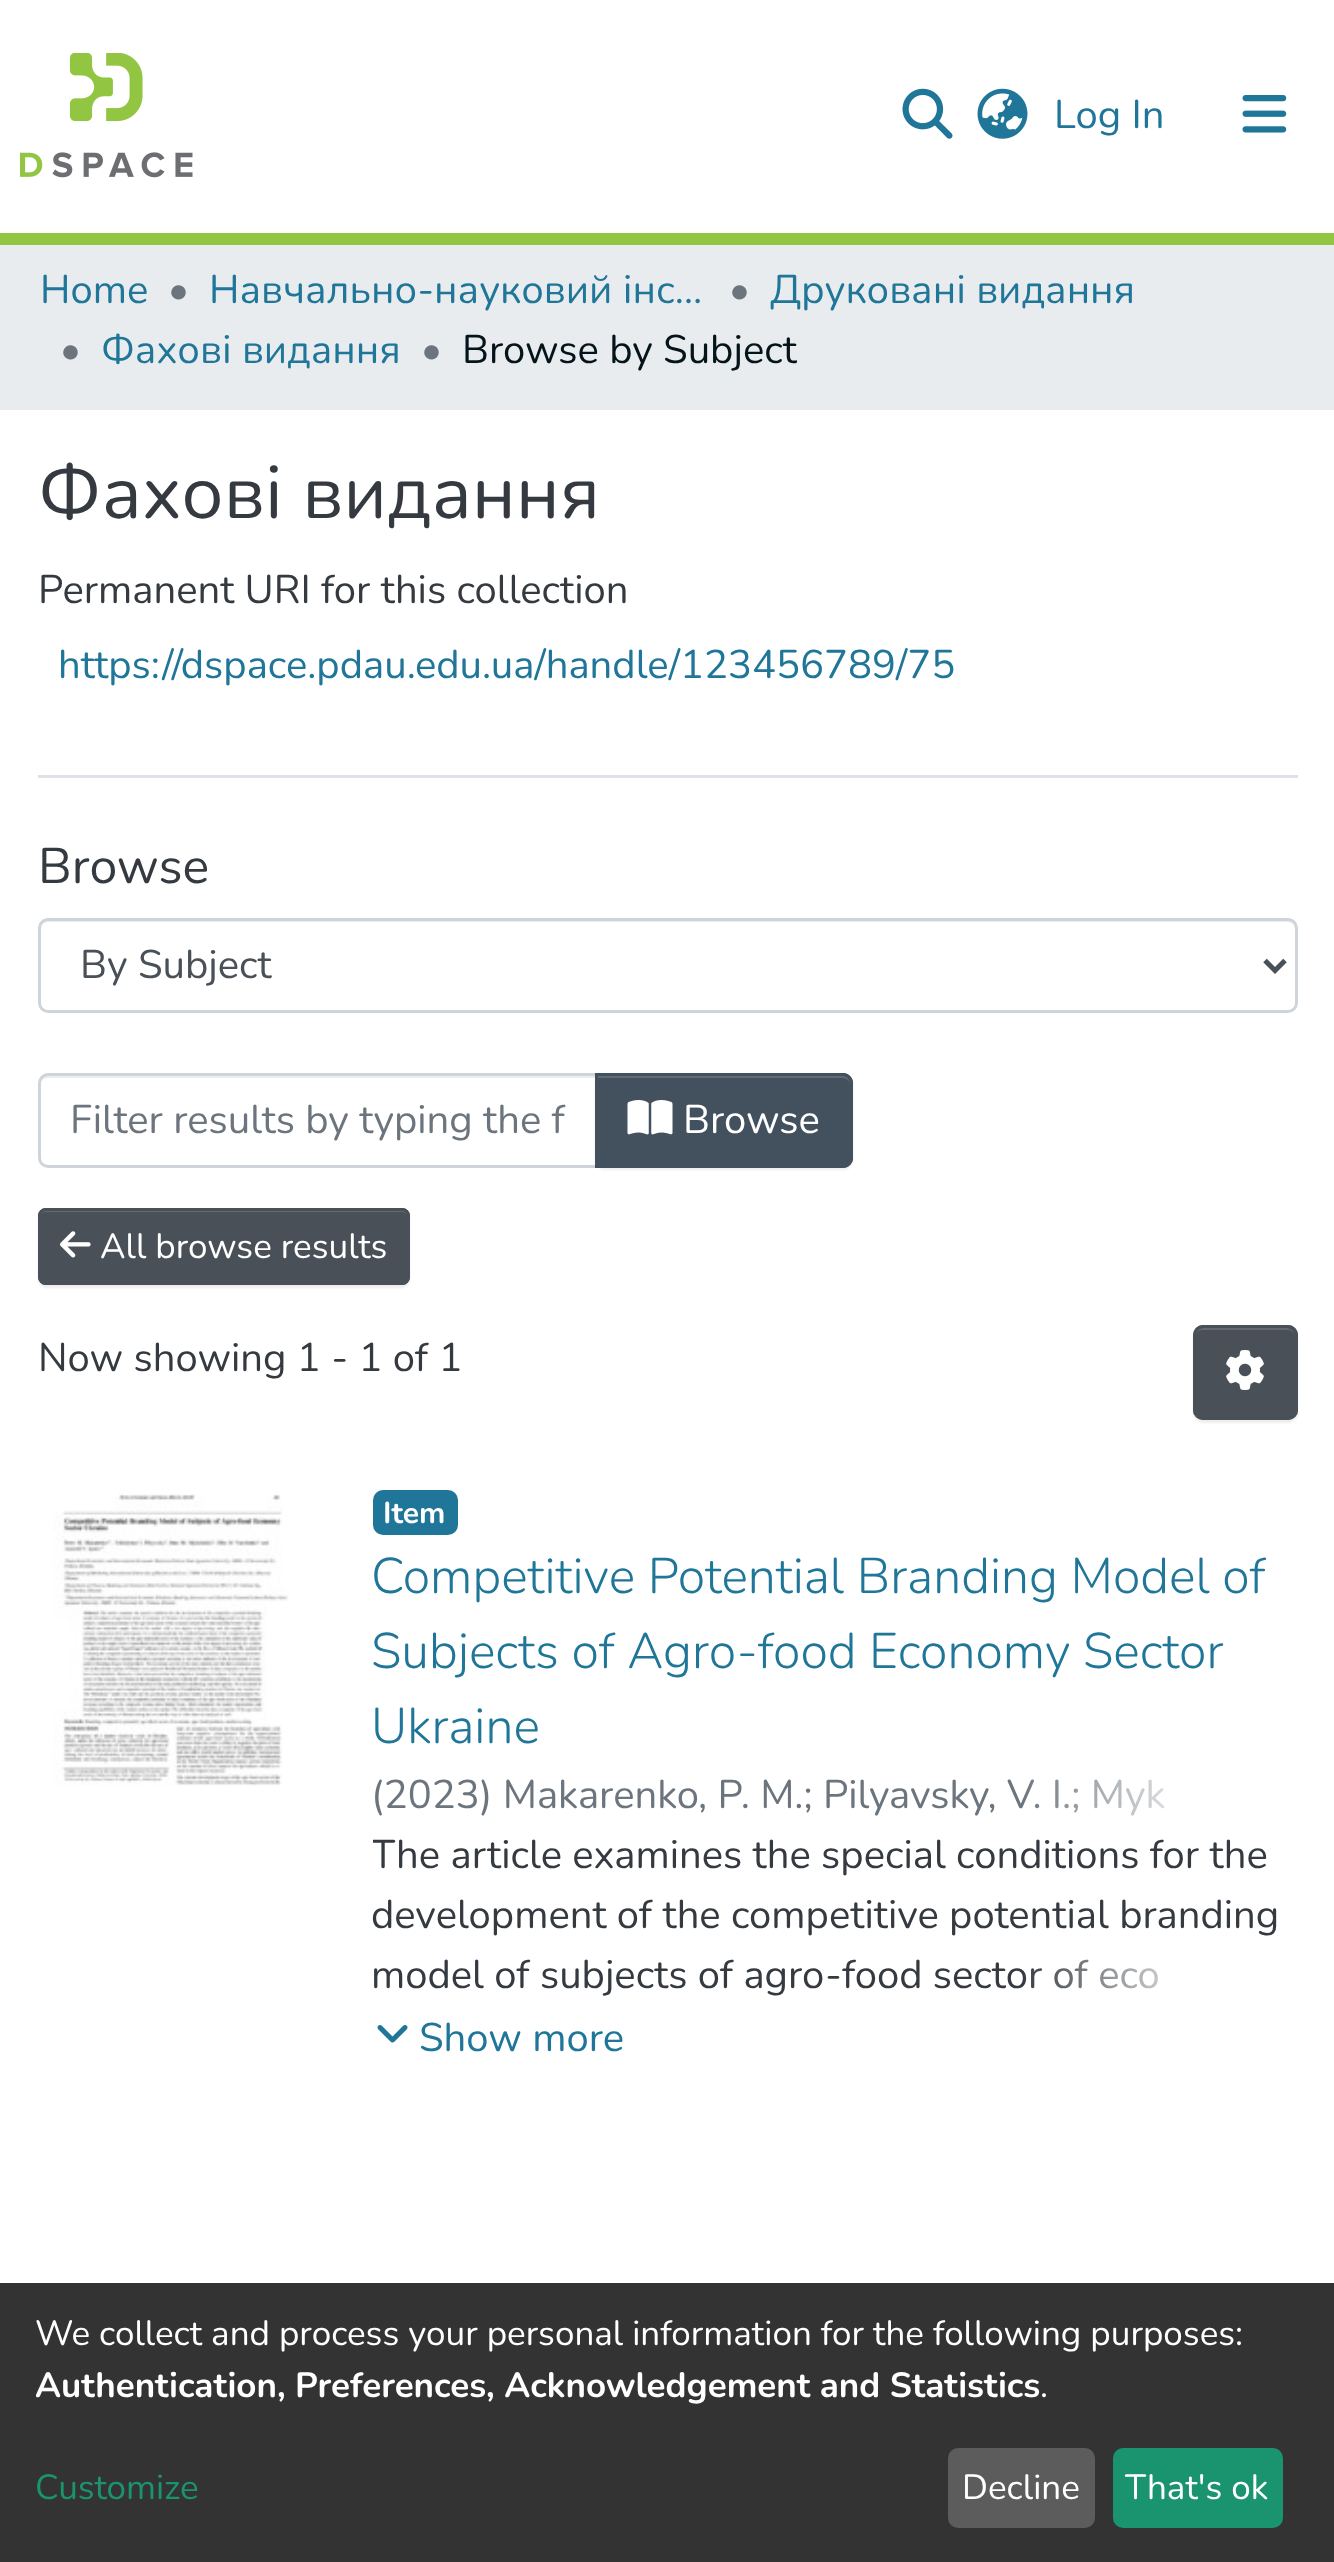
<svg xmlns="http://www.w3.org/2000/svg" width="1334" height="2562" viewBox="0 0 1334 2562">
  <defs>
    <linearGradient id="g1" gradientUnits="userSpaceOnUse" x1="1020" y1="1795" x2="1298" y2="1795"><stop offset="0" stop-color="rgb(255,255,255)" stop-opacity="0"/><stop offset="0.7" stop-color="rgb(255,255,255)"/></linearGradient>
    <clipPath id="clip1"><rect x="373" y="1825" width="925" height="180"/></clipPath>
    <linearGradient id="g2" gradientUnits="userSpaceOnUse" x1="1020" y1="1975" x2="1298" y2="1975"><stop offset="0" stop-color="rgb(255,255,255)" stop-opacity="0"/><stop offset="0.7" stop-color="rgb(255,255,255)"/></linearGradient>
  </defs>
  <rect width="100%" height="100%" fill="rgb(255,255,255)"/>
  <image x="20" y="53" width="173" height="125" href="pic1.png"/>
  <image x="902" y="88" width="51" height="51" href="pic2.png"/>
  <image x="977" y="88" width="51" height="51" href="pic3.png"/>
  <text x="1054" y="128" font-family="Nunito" font-size="40" fill="rgb(32,118,152)">Log In</text>
  <image x="1242" y="95" width="45" height="38" href="pic4.png"/>
  <rect x="0" y="233" width="1334" height="12" fill="rgb(146,198,66)"/>
  <rect x="0" y="245" width="1334" height="165" fill="rgb(233,236,239)"/>
  <text x="40" y="303" font-family="Nunito" font-size="40" fill="rgb(32,118,152)">Home</text>
  <text x="168" y="303" font-family="Nunito" font-size="40" fill="rgb(108,117,125)">•</text>
  <text x="209" y="303" font-family="Nunito" font-size="40" fill="rgb(32,118,152)">Навчально-науковий інс…</text>
  <text x="729" y="303" font-family="Nunito" font-size="40" fill="rgb(108,117,125)">•</text>
  <text x="770" y="303" font-family="Nunito" font-size="40" fill="rgb(32,118,152)">Друковані видання</text>
  <text x="60" y="363" font-family="Nunito" font-size="40" fill="rgb(108,117,125)">•</text>
  <text x="101" y="363" font-family="Nunito" font-size="40" fill="rgb(32,118,152)">Фахові видання</text>
  <text x="421" y="363" font-family="Nunito" font-size="40" fill="rgb(108,117,125)">•</text>
  <text x="462" y="363" font-family="Nunito" font-size="40" fill="rgb(5,20,26)">Browse by Subject</text>
  <rect x="38" y="775" width="1260" height="3" fill="rgb(222,226,230)"/>
  <text x="38" y="518" font-family="Nunito" font-size="75" fill="rgb(52,58,64)">Фахові видання</text>
  <text x="38" y="603" font-family="Nunito" font-size="40" fill="rgb(52,58,64)">Permanent URI for this collection</text>
  <text x="58" y="678" font-family="Nunito" font-size="40" fill="rgb(32,118,152)">https://dspace.pdau.edu.ua/handle/123456789/75</text>
  <text x="38" y="883" font-family="Nunito" font-size="50" fill="rgb(52,58,64)">Browse</text>
  <path d="M48 922H1288C1292 922 1295 926 1295 930C1295 925 1293 920 1287 920H48C42 920 40 925 40 930C40 926 43 922 48 922Z" fill="rgb(236,236,236)"/>
  <rect x="39.5" y="919.5" width="1257" height="92" rx="8.5" fill="none" stroke="rgb(206,212,218)" stroke-width="3"/>
  <path d="M1265 960.5L1275 970.5L1285 960.5" fill="none" stroke="rgb(73,80,87)" stroke-width="5"/>
  <text x="80" y="978" font-family="Nunito" font-size="40" fill="rgb(73,80,87)">By Subject</text>
  <path d="M48 1078H595V1075H48C42 1075 40 1080 40 1085C40 1081 43 1078 48 1078Z" fill="rgb(236,236,236)"/>
  <path d="M48 1074.5H596.5V1166.5H48C43.5 1166.5 39.5 1162.5 39.5 1158V1083C39.5 1078.5 43.5 1074.5 48 1074.5Z" fill="none" stroke="rgb(206,212,218)" stroke-width="3"/>
  <text x="70" y="1133" font-family="Nunito" font-size="40" fill="rgb(108,117,125)">Filter results by typing the f</text>
  <rect x="595" y="1075" width="258" height="95" rx="10" fill="rgba(0,0,0,0.07)" filter="blur(1px)"/>
  <path d="M595 1073H843C848.5 1073 853 1077.5 853 1083V1158C853 1163.5 848.5 1168 843 1168H595Z" fill="rgb(67,81,95)"/>
  <path d="M598 1078H842C847 1078 850 1081 850 1085V1083C850 1079 846 1075 842 1075H598Z" fill="rgb(95,107,119)"/>
  <path d="M596.5 1074.5H843C847.5 1074.5 851.5 1078.5 851.5 1083V1158C851.5 1162.5 847.5 1166.5 843 1166.5H596.5Z" fill="none" stroke="rgb(67,81,95)" stroke-width="3"/>
  <image x="627" y="1100" width="46" height="35" href="pic5.png"/>
  <text x="683" y="1133" font-family="Nunito" font-size="40" fill="rgb(255,255,255)">Browse</text>
  <rect x="38" y="1210" width="372" height="78" rx="8" fill="rgba(0,0,0,0.07)" filter="blur(1px)"/>
  <rect x="38" y="1208" width="372" height="77" rx="8" fill="rgb(73,80,87)"/>
  <path d="M46 1212H402C405 1212 408 1215 408 1218C408 1214 408 1210 403 1210H44C40 1211 40 1215 40 1218C40 1215 42 1212 46 1212Z" fill="rgb(100,106,112)"/>
  <rect x="39.5" y="1209.5" width="369" height="74" rx="6.5" fill="none" stroke="rgb(73,80,87)" stroke-width="3"/>
  <image x="60" y="1231" width="31" height="27" href="pic6.png"/>
  <text x="100" y="1258" font-family="Nunito" font-size="35" fill="rgb(255,255,255)">All browse results</text>
  <text x="38" y="1371" font-family="Nunito" font-size="40" fill="rgb(52,58,64)">Now showing 1 - 1 of 1</text>
  <rect x="1193" y="1328" width="105" height="95" rx="10" fill="rgba(0,0,0,0.07)" filter="blur(1px)"/>
  <rect x="1193" y="1325" width="105" height="95" rx="10" fill="rgb(73,80,87)"/>
  <path d="M1202 1330H1288C1292 1330 1295 1333 1295 1338C1295 1325 1283 1328 1273 1328H1217C1207 1328 1195 1325 1195 1338C1195 1333 1198 1330 1202 1330Z" fill="rgb(100,106,112)"/>
  <rect x="1194.5" y="1326.5" width="102" height="92" rx="8.5" fill="none" stroke="rgb(73,80,87)" stroke-width="3"/>
  <image x="1226" y="1350" width="38" height="40" href="pic7.png"/>
  <image x="53" y="1494" width="236" height="292" href="pic8.png"/>
  <rect x="373" y="1490" width="85" height="45" rx="10" fill="rgb(32,118,152)"/>
  <text x="383" y="1523" font-family="Nunito" font-size="30" font-weight="bold" fill="rgb(255,255,255)">Item</text>
  <g font-family="Nunito" font-size="50" font-weight="300" fill="rgb(32,118,152)">
    <text>
      <tspan x="371" y="1593">Competitive Potential Branding Model of</tspan>
      <tspan x="371" y="1668">Subjects of Agro-food Economy Sector</tspan>
      <tspan x="371" y="1743">Ukraine</tspan>
    </text>
  </g>
  <text x="371" y="1808" font-family="Nunito" font-size="40" fill="rgb(108,117,125)">(2023) Makarenko, P. M.; Pilyavsky, V. I.; Мyk</text>
  <rect x="1024" y="1779" width="141" height="37" fill="url(#g1)"/>
  <g clip-path="url(#clip1)">
    <text x="371" y="1868" font-family="Nunito" font-size="40" fill="rgb(52,58,64)">The article examines the special conditions for the</text>
  </g>
  <g font-family="Nunito" font-size="40" fill="rgb(52,58,64)">
    <text>
      <tspan x="371" y="1928">development of the competitive potential branding</tspan>
      <tspan x="371" y="1988">model of subjects of agro-food sector of eco</tspan>
    </text>
  </g>
  <rect x="1024" y="1959" width="135" height="30" fill="url(#g2)"/>
  <image x="377" y="2025" width="31" height="18" href="pic9.png"/>
  <text x="419" y="2051" font-family="Nunito" font-size="40" fill="rgb(32,118,152)">Show more</text>
  <rect x="0" y="2283" width="1334" height="279" fill="rgb(51,51,51)"/>
  <text x="35" y="2345" font-family="Nunito" font-size="35" fill="rgb(255,255,255)">We collect and process your personal information for the following purposes:</text>
  <text x="35" y="2397" font-family="Nunito" font-size="35" font-weight="bold" fill="rgb(255,255,255)">Authentication, Preferences, Acknowledgement and Statistics</text>
  <text x="1040" y="2397" font-family="Nunito" font-size="35" fill="rgb(255,255,255)">.</text>
  <text x="35" y="2499" font-family="Nunito" font-size="35" fill="rgb(26,147,111)">Customize</text>
  <rect x="948" y="2448" width="147" height="80" rx="10" fill="rgb(92,92,92)"/>
  <text x="962" y="2499" font-family="Nunito" font-size="35" fill="rgb(255,255,255)">Decline</text>
  <rect x="1113" y="2448" width="170" height="80" rx="10" fill="rgb(26,147,111)"/>
  <text x="1125" y="2499" font-family="Nunito" font-size="35" fill="rgb(255,255,255)">That's ok</text>
</svg>
